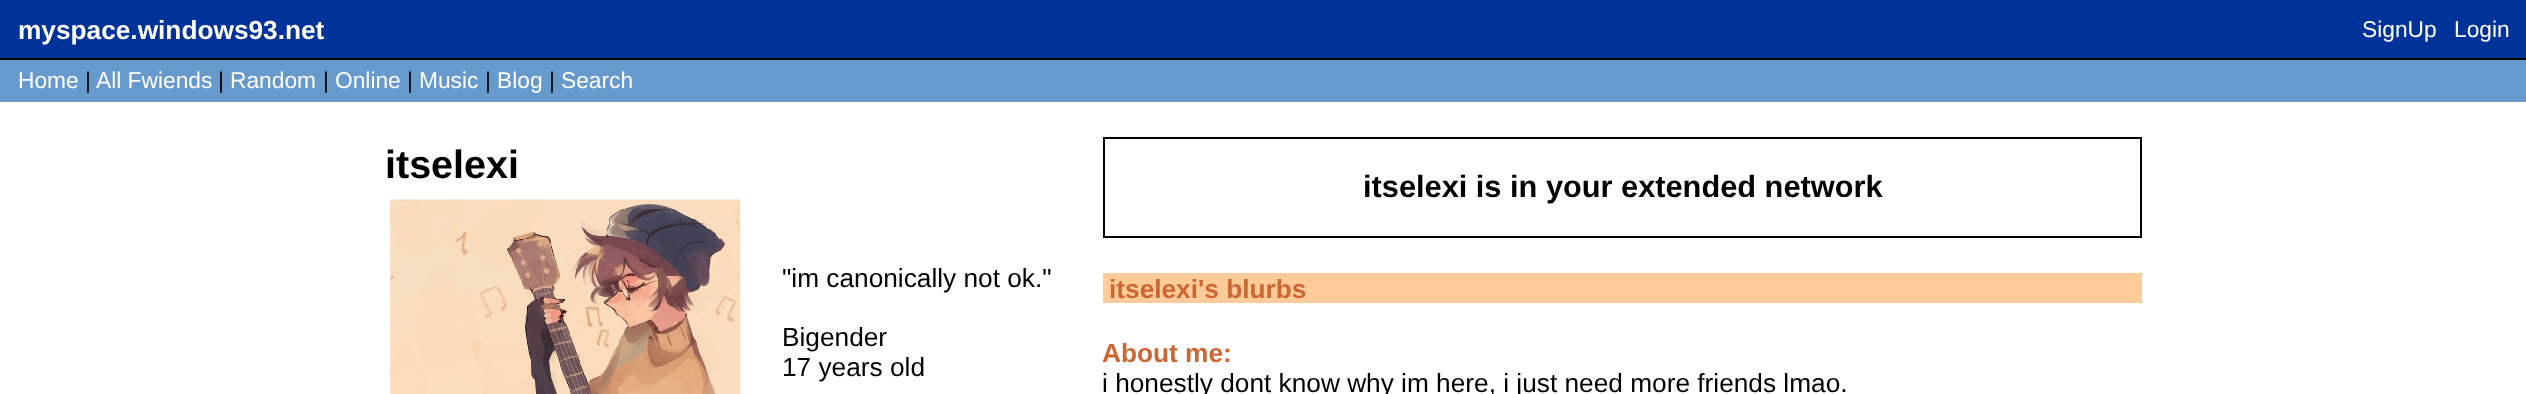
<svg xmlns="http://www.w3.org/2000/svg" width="2526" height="394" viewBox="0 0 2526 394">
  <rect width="100%" height="100%" fill="rgb(255,255,255)"/>
  <rect x="0" y="0" width="2526" height="58" fill="rgb(0,51,153)"/>
  <rect x="0" y="58" width="2526" height="2" fill="rgb(0,0,0)"/>
  <text x="18" y="39" font-family="Liberation Sans" font-size="26.25" font-weight="bold" fill="rgb(255,255,255)">myspace.windows93.net</text>
  <g font-family="Liberation Sans" font-size="22.75" fill="rgb(255,255,255)">
    <text x="2362" y="37">SignUp</text>
    <text x="2454" y="37">Login</text>
  </g>
  <rect x="0" y="60" width="2526" height="42" fill="rgb(102,153,204)"/>
  <text x="18" y="88" font-family="Liberation Sans" font-size="22.75" fill="rgb(255,255,255)">Home</text>
  <text x="85" y="88" font-family="Liberation Sans" font-size="22.75" fill="rgb(0,0,0)">|</text>
  <text x="96" y="88" font-family="Liberation Sans" font-size="22.75" fill="rgb(255,255,255)">All Fwiends</text>
  <text x="218" y="88" font-family="Liberation Sans" font-size="22.75" fill="rgb(0,0,0)">|</text>
  <text x="230" y="88" font-family="Liberation Sans" font-size="22.75" fill="rgb(255,255,255)">Random</text>
  <text x="323" y="88" font-family="Liberation Sans" font-size="22.75" fill="rgb(0,0,0)">|</text>
  <text x="335" y="88" font-family="Liberation Sans" font-size="22.75" fill="rgb(255,255,255)">Online</text>
  <text x="407" y="88" font-family="Liberation Sans" font-size="22.75" fill="rgb(0,0,0)">|</text>
  <text x="419" y="88" font-family="Liberation Sans" font-size="22.75" fill="rgb(255,255,255)">Music</text>
  <text x="485" y="88" font-family="Liberation Sans" font-size="22.75" fill="rgb(0,0,0)">|</text>
  <text x="497" y="88" font-family="Liberation Sans" font-size="22.75" fill="rgb(255,255,255)">Blog</text>
  <text x="549" y="88" font-family="Liberation Sans" font-size="22.75" fill="rgb(0,0,0)">|</text>
  <text x="561" y="88" font-family="Liberation Sans" font-size="22.75" fill="rgb(255,255,255)">Search</text>
  <text x="385" y="178" font-family="Liberation Sans" font-size="39.5" font-weight="bold" fill="rgb(0,0,0)">itselexi</text>
  <image x="390" y="199" width="351" height="195" href="pic1.png"/>
  <g font-family="Liberation Sans" font-size="26.25" fill="rgb(0,0,0)">
    <text x="782" y="287">"im canonically not ok."</text>
    <text>
      <tspan x="782" y="346">Bigender</tspan>
      <tspan x="782" y="376">17 years old</tspan>
    </text>
  </g>
  <rect x="1104" y="138" width="1037" height="99" fill="none" stroke="rgb(0,0,0)" stroke-width="2"/>
  <text x="1363" y="197" font-family="Liberation Sans" font-size="30.75" font-weight="bold" fill="rgb(0,0,0)">itselexi is in your extended network</text>
  <rect x="1103" y="273" width="1039" height="30" fill="rgb(255,204,153)"/>
  <g font-family="Liberation Sans" font-size="26.25" font-weight="bold" fill="rgb(204,102,51)">
    <text x="1109" y="298">itselexi's blurbs</text>
    <text x="1102" y="362">About me:</text>
  </g>
  <text x="1102" y="392" font-family="Liberation Sans" font-size="26.25" fill="rgb(0,0,0)">i honestly dont know why im here, i just need more friends lmao.</text>
</svg>
